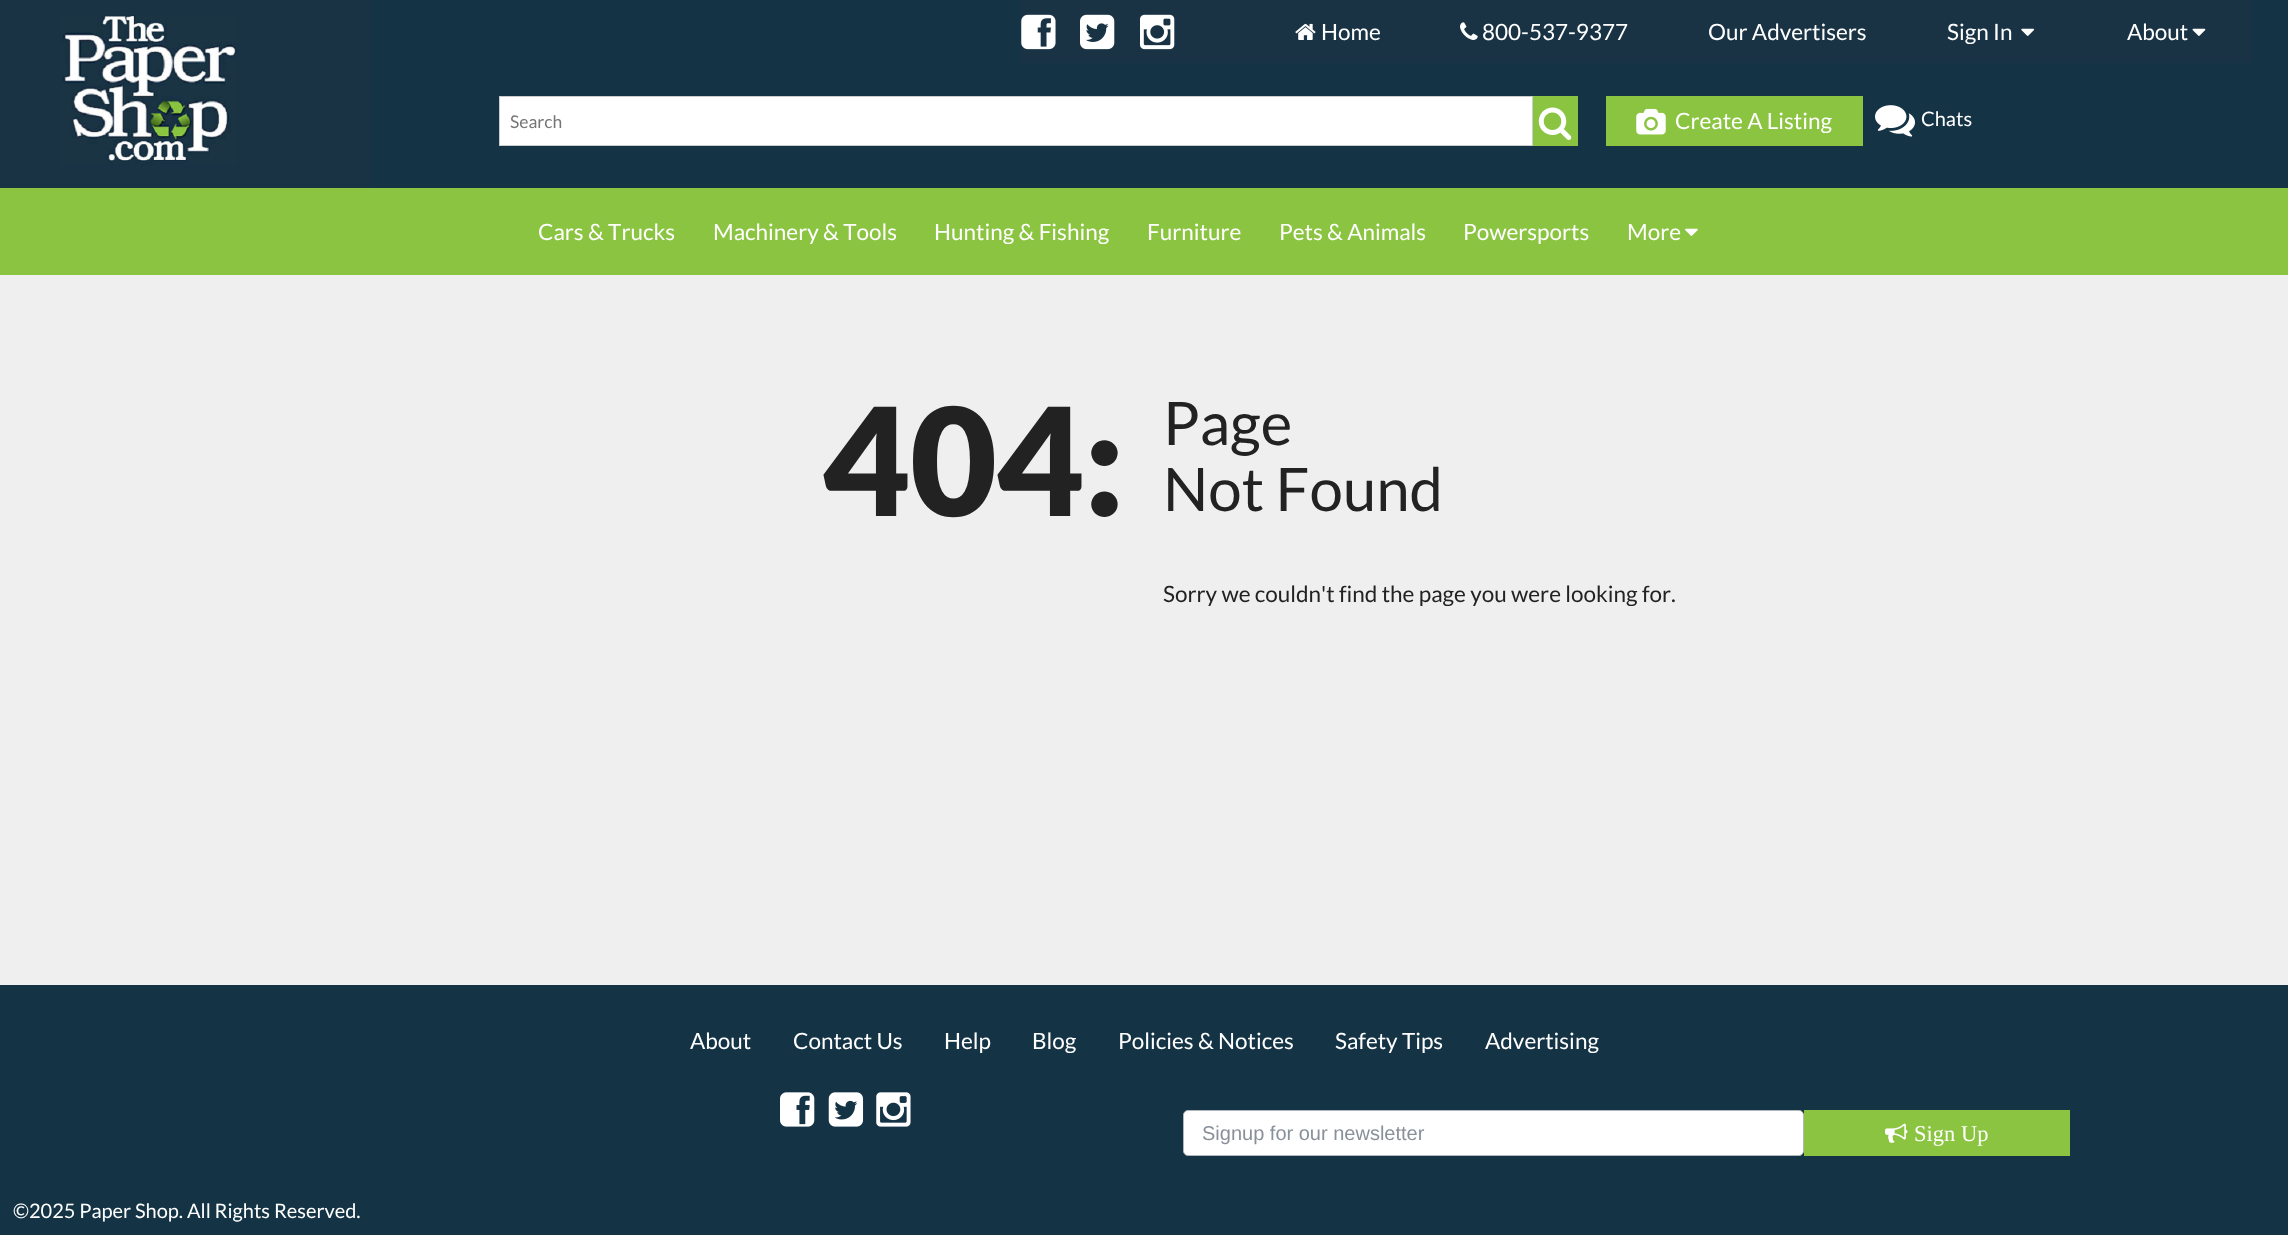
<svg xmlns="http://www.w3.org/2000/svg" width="2288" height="1235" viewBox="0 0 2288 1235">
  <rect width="100%" height="100%" fill="rgb(239,239,239)"/>
  <rect x="0" y="0" width="370" height="188" fill="rgb(25,51,69)"/>
  <image x="61" y="15" width="176" height="150" href="pic1.png"/>
  <rect x="370" y="0" width="1918" height="188" fill="rgb(20,51,69)"/>
  <rect x="1021" y="0" width="1230" height="63" fill="rgb(25,51,69)"/>
  <image x="1021" y="14" width="35" height="36" href="pic2.png"/>
  <image x="1080" y="14" width="35" height="36" href="pic3.png"/>
  <image x="1140" y="14" width="35" height="36" href="pic4.png"/>
  <image x="1295" y="23" width="21" height="17" href="pic5.png"/>
  <text x="1321" y="40" font-family="Lato" font-size="22.5" fill="rgb(255,255,255)">Home</text>
  <image x="1460" y="22" width="18" height="18" href="pic6.png"/>
  <g font-family="Lato" font-size="22.5" fill="rgb(255,255,255)">
    <text x="1482" y="40">800-537-9377</text>
    <text x="1708" y="40">Our Advertisers</text>
    <text x="1947" y="40">Sign In</text>
  </g>
  <image x="2021" y="28" width="14" height="8" href="pic7.png"/>
  <text x="2127" y="40" font-family="Lato" font-size="22.5" fill="rgb(255,255,255)">About</text>
  <image x="2192" y="28" width="14" height="8" href="pic8.png"/>
  <rect x="499.5" y="96.5" width="1033" height="49" fill="rgb(255,255,255)" stroke="rgb(204,204,204)"/>
  <text x="510" y="128" font-family="Lato" font-size="17.5" fill="rgb(117,117,117)">Search</text>
  <rect x="1533" y="96" width="45" height="50" fill="rgb(139,196,65)"/>
  <image x="1538" y="107" width="34" height="33" href="pic9.png"/>
  <rect x="1606" y="96" width="257" height="50" fill="rgb(139,196,65)"/>
  <image x="1636" y="108" width="30" height="27" href="pic10.png"/>
  <text x="1675" y="129" font-family="Lato" font-size="22.5" fill="rgb(255,255,255)">Create A Listing</text>
  <image x="1875" y="105" width="40" height="32" href="pic11.png"/>
  <text x="1921" y="126" font-family="Lato" font-size="20" fill="rgb(255,255,255)">Chats</text>
  <rect x="0" y="188" width="2288" height="87" fill="rgb(139,196,65)"/>
  <g font-family="Lato" font-size="22.5" fill="rgb(255,255,255)">
    <text x="538" y="240">Cars &amp; Trucks</text>
    <text x="713" y="240">Machinery &amp; Tools</text>
    <text x="934" y="240">Hunting &amp; Fishing</text>
    <text x="1147" y="240">Furniture</text>
    <text x="1279" y="240">Pets &amp; Animals</text>
    <text x="1463" y="240">Powersports</text>
    <text x="1627" y="240">More</text>
  </g>
  <image x="1685" y="228" width="13" height="8" href="pic12.png"/>
  <text x="823" y="516" font-family="Lato" font-size="150" font-weight="900" fill="rgb(34,34,34)">404:</text>
  <g font-family="Lato" font-size="60" fill="rgb(34,34,34)">
    <text>
      <tspan x="1163" y="445">Page</tspan>
      <tspan x="1163" y="511">Not Found</tspan>
    </text>
  </g>
  <text x="1163" y="602" font-family="Lato" font-size="22.5" fill="rgb(34,34,34)">Sorry we couldn't find the page you were looking for.</text>
  <rect x="0" y="985" width="2288" height="250" fill="rgb(20,51,69)"/>
  <g font-family="Lato" font-size="22.5" fill="rgb(255,255,255)">
    <text x="690" y="1049">About</text>
    <text x="793" y="1049">Contact Us</text>
    <text x="944" y="1049">Help</text>
    <text x="1032" y="1049">Blog</text>
    <text x="1118" y="1049">Policies &amp; Notices</text>
    <text x="1335" y="1049">Safety Tips</text>
    <text x="1485" y="1049">Advertising</text>
  </g>
  <image x="780" y="1092" width="35" height="35" href="pic13.png"/>
  <image x="828" y="1092" width="36" height="35" href="pic14.png"/>
  <image x="876" y="1092" width="35" height="35" href="pic15.png"/>
  <rect x="1183.5" y="1110.5" width="620" height="45" rx="4.5" fill="rgb(255,255,255)" stroke="rgb(176,182,187)"/>
  <text x="1202" y="1140" font-family="Liberation Sans" font-size="20" fill="rgb(136,145,154)">Signup for our newsletter</text>
  <rect x="1804" y="1110" width="266" height="46" fill="rgb(139,196,65)"/>
  <image x="1885" y="1123" width="23" height="20" href="pic16.png"/>
  <text x="1914" y="1141" font-family="Liberation Serif" font-size="22.5" fill="rgb(255,255,255)">Sign Up</text>
  <text x="13" y="1218" font-family="Lato" font-size="20" fill="rgb(255,255,255)">©2025 Paper Shop. All Rights Reserved.</text>
</svg>
